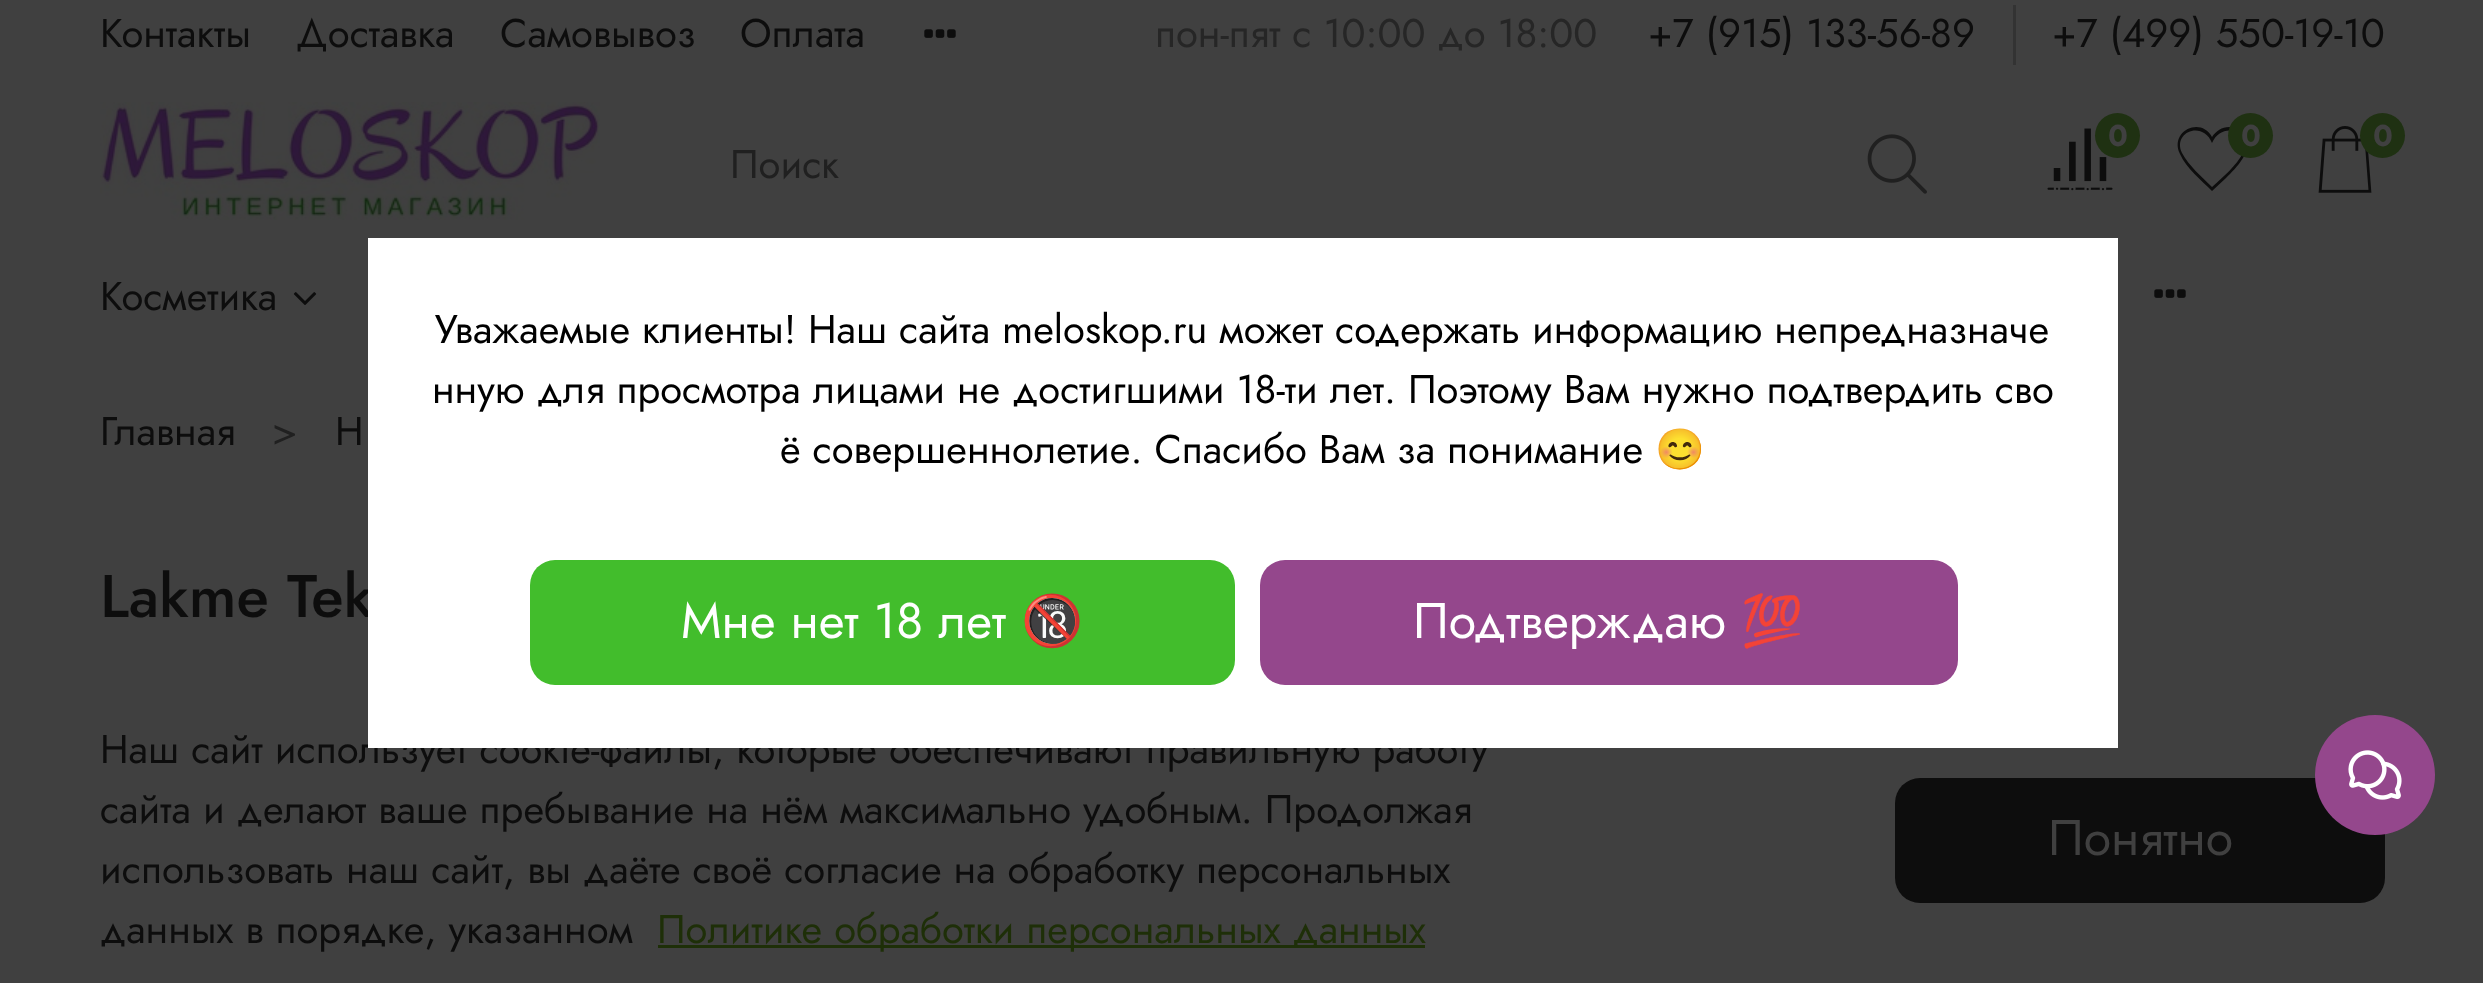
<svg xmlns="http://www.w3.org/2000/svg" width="2483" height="983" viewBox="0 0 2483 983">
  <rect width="100%" height="100%" fill="rgb(64,64,64)"/>
  <g font-family="Jost" font-size="40" fill="rgb(13,13,13)">
    <text x="100" y="47">Контакты</text>
    <text x="296" y="47">Доставка</text>
    <text x="500" y="47">Самовывоз</text>
    <text x="740" y="47">Оплата</text>
  </g>
  <image x="924" y="29" width="32" height="9" href="pic1.png"/>
  <text x="1155" y="47" font-family="Jost" font-size="40" fill="rgb(38,38,38)">пон-пят с 10:00 до 18:00</text>
  <rect x="2013" y="5" width="3" height="60" fill="rgb(51,51,51)"/>
  <g font-family="Jost" font-size="40" fill="rgb(13,13,13)">
    <text x="1648" y="47">+7 (915) 133-56-89</text>
    <text x="2052" y="47">+7 (499) 550-19-10</text>
  </g>
  <image x="100" y="102" width="500" height="118" href="pic2.png"/>
  <image x="2047" y="128" width="66" height="63" href="pic3.png"/>
  <circle cx="2117.5" cy="135.5" r="22.5" fill="rgb(31,49,18)"/>
  <text x="2108" y="146" font-family="Jost" font-size="30" font-weight="bold" fill="rgb(64,64,64)">0</text>
  <path d="M2212 187C2202 177 2189 166 2182 153C2172 132 2203 120 2212 143C2222 120 2253 132 2243 153C2236 166 2223 177 2212 187ZM2229 127C2222 127 2216 131 2212 137C2201 116 2169 131 2180 154C2186 168 2202 181 2212 191L2226 178C2236 168 2255 150 2244 134C2241 130 2235 127 2229 127Z" fill="rgb(13,13,13)"/>
  <circle cx="2250.5" cy="135.5" r="22.5" fill="rgb(31,49,18)"/>
  <text x="2241" y="146" font-family="Jost" font-size="30" font-weight="bold" fill="rgb(64,64,64)">0</text>
  <image x="2318" y="126" width="54" height="67" href="pic4.png"/>
  <circle cx="2382.5" cy="135.5" r="22.5" fill="rgb(31,49,18)"/>
  <text x="2373" y="146" font-family="Jost" font-size="30" font-weight="bold" fill="rgb(64,64,64)">0</text>
  <text x="730" y="178" font-family="Jost" font-size="40" fill="rgb(32,32,32)">Поиск</text>
  <image x="1867" y="134" width="60" height="60" href="pic5.png"/>
  <text x="100" y="310" font-family="Jost" font-size="40" fill="rgb(13,13,13)">Косметика</text>
  <image x="293" y="292" width="24" height="13" href="pic6.png"/>
  <image x="2154" y="289" width="32" height="9" href="pic1.png"/>
  <text x="100" y="445" font-family="Jost" font-size="40" fill="rgb(13,13,13)">Главная</text>
  <text x="272" y="445" font-family="Jost" font-size="40" fill="rgb(32,32,32)">&gt;</text>
  <text x="335" y="445" font-family="Jost" font-size="40" fill="rgb(13,13,13)">Н</text>
  <text x="100" y="617" font-family="Jost" font-size="60" font-weight="500" fill="rgb(13,13,13)">Lakme Tek</text>
  <text x="100" y="763" font-family="Jost" font-size="40" fill="rgb(13,13,13)">Наш сайт использует cookie-файлы, которые обеспечивают правильную работу</text>
  <rect x="368" y="238" width="1750" height="510" fill="rgb(255,255,255)"/>
  <g font-family="Jost" font-size="40" fill="rgb(0,0,0)">
    <text x="435" y="343">Уважаемые клиенты! Наш сайта meloskop.ru может содержать информацию непредназначе</text>
    <text x="432" y="403">нную для просмотра лицами не достигшими 18-ти лет. Поэтому Вам нужно подтвердить сво</text>
    <text x="780" y="463">ё совершеннолетие. Спасибо Вам за понимание</text>
  </g>
  <text x="1655" y="463" font-family="Noto Color Emoji" font-size="40" fill="rgb(0,0,0)">😊</text>
  <rect x="530" y="560" width="705" height="125" rx="25" fill="rgb(66,189,44)"/>
  <text x="681" y="638" font-family="Jost" font-size="50" fill="rgb(255,255,255)">Мне нет 18 лет</text>
  <text x="1021" y="638" font-family="Noto Color Emoji" font-size="50" fill="rgb(255,255,255)">🔞</text>
  <rect x="1260" y="560" width="698" height="125" rx="25" fill="rgb(148,71,140)"/>
  <text x="1413" y="638" font-family="Jost" font-size="50" fill="rgb(255,255,255)">Подтверждаю</text>
  <text x="1741" y="638" font-family="Noto Color Emoji" font-size="50" fill="rgb(255,255,255)">💯</text>
  <g font-family="Jost" font-size="40" fill="rgb(13,13,13)">
    <text>
      <tspan x="100" y="823">сайта и делают ваше пребывание на нём максимально удобным. Продолжая</tspan>
      <tspan x="100" y="883">использовать наш сайт, вы даёте своё согласие на обработку персональных</tspan>
      <tspan x="100" y="943">данных в порядке, указанном</tspan>
    </text>
  </g>
  <rect x="658" y="945" width="767" height="3" fill="rgb(30,47,8)"/>
  <text x="657" y="943" font-family="Jost" font-size="40" fill="rgb(30,47,8)">Политике обработки персональных данных</text>
  <rect x="1895" y="778" width="490" height="125" rx="25" fill="rgb(13,13,13)"/>
  <text x="2048" y="855" font-family="Jost" font-size="50" fill="rgb(64,64,64)">Понятно</text>
  <circle cx="2375" cy="775" r="60" fill="rgb(148,71,140)"/>
  <image x="2348" y="750" width="54" height="50" href="pic7.png"/>
</svg>
